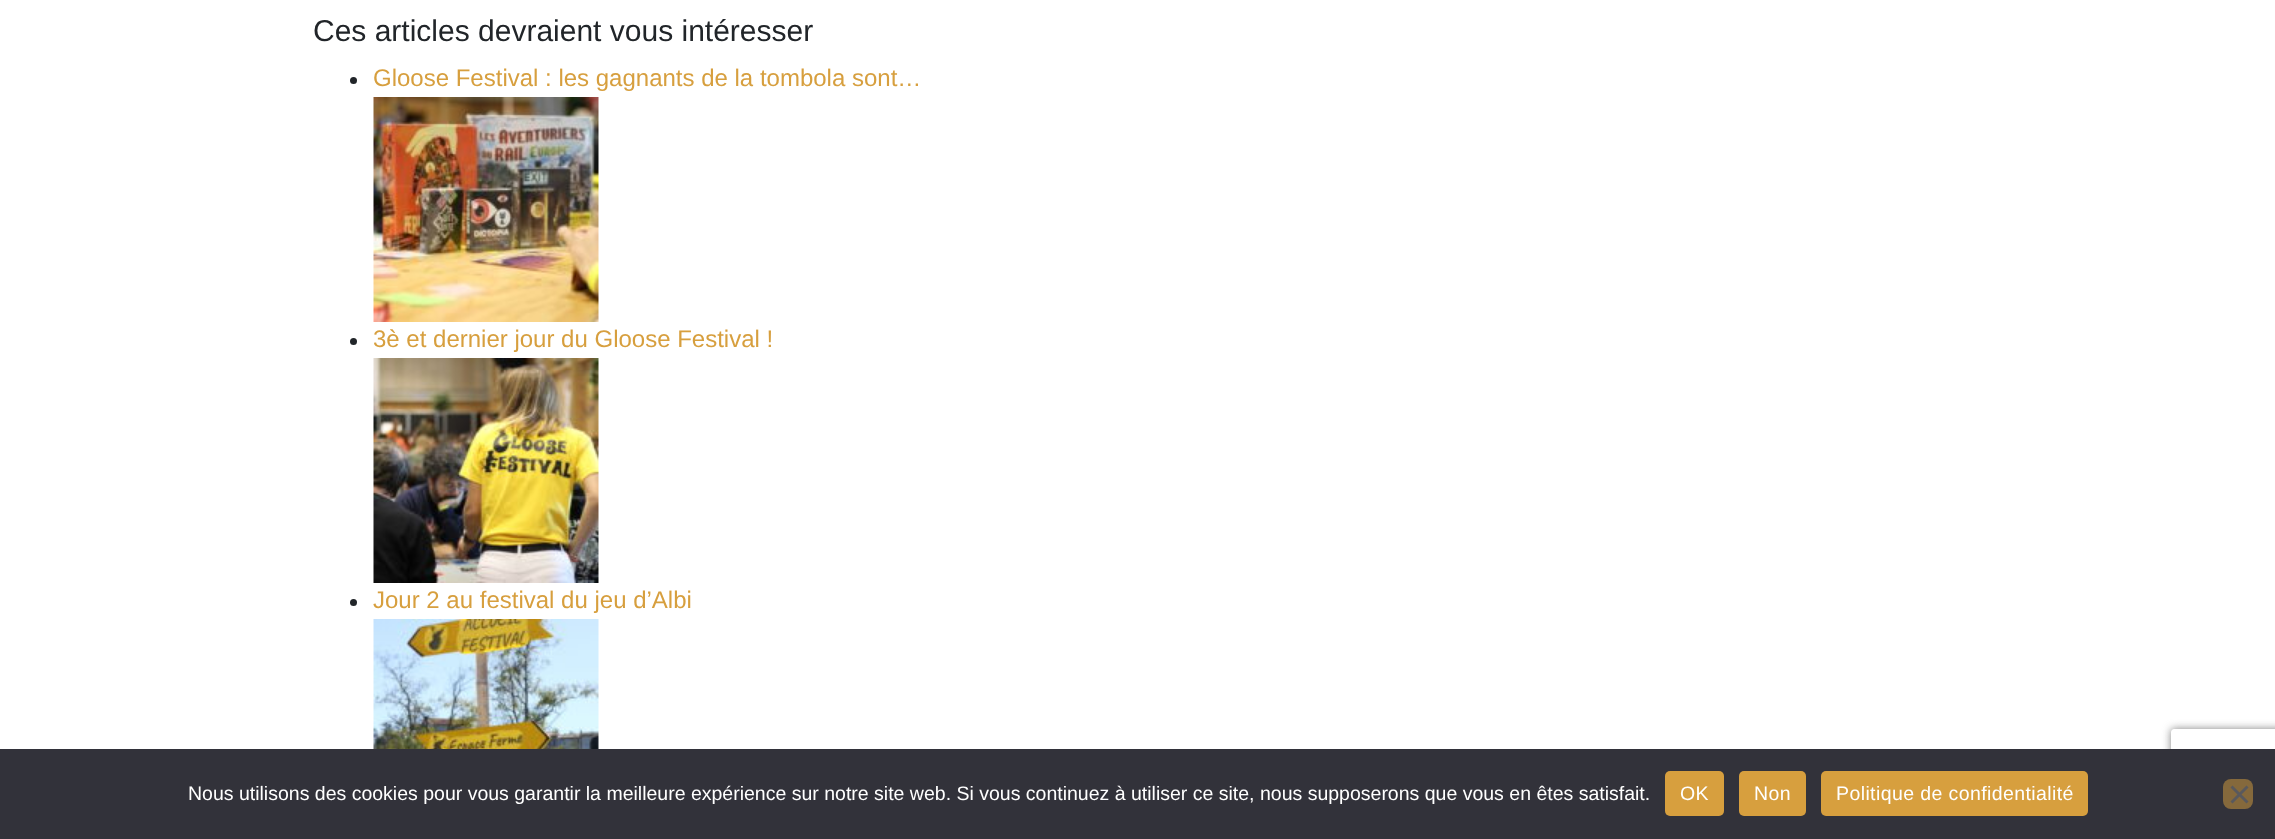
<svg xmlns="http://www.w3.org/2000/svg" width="2275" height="839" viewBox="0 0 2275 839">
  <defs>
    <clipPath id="clip1"><path d="M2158 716H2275V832H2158ZM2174 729H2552C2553.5 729 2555 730.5 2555 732V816C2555 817.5 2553.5 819 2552 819H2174C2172.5 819 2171 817.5 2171 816V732C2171 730.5 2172.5 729 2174 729Z" clip-rule="evenodd"/></clipPath>
  </defs>
  <rect width="100%" height="100%" fill="rgb(255,255,255)"/>
  <text x="313" y="41" font-family="Liberation Sans" font-size="30" fill="rgb(33,37,41)">Ces articles devraient vous intéresser</text>
  <circle cx="353.5" cy="80.5" r="3.5" fill="rgb(33,37,41)"/>
  <text x="373" y="86" font-family="Liberation Sans" font-size="24" fill="rgb(215,159,62)">Gloose Festival : les gagnants de la tombola sont…</text>
  <image x="373" y="97" width="226" height="225" href="pic1.png"/>
  <circle cx="353.5" cy="341.5" r="3.5" fill="rgb(33,37,41)"/>
  <text x="373" y="347" font-family="Liberation Sans" font-size="24" fill="rgb(215,159,62)">3è et dernier jour du Gloose Festival !</text>
  <image x="373" y="358" width="226" height="225" href="pic2.png"/>
  <circle cx="353.5" cy="602.5" r="3.5" fill="rgb(33,37,41)"/>
  <text x="373" y="608" font-family="Liberation Sans" font-size="24" fill="rgb(215,159,62)">Jour 2 au festival du jeu d’Albi</text>
  <image x="373" y="619" width="226" height="130" href="pic3.png"/>
  <g clip-path="url(#clip1)">
    <rect x="2171" y="729" width="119" height="90" rx="3" fill="rgb(128,128,128)" filter="blur(4px)"/>
  </g>
  <rect x="0" y="749" width="2275" height="90" fill="rgb(50,50,58)"/>
  <text x="188" y="800" font-family="Liberation Sans" font-size="19.5" fill="rgb(255,255,255)">Nous utilisons des cookies pour vous garantir la meilleure expérience sur notre site web. Si vous continuez à utiliser ce site, nous supposerons que vous en êtes satisfait.</text>
  <rect x="1665" y="771" width="59" height="45" rx="5" fill="rgb(215,159,62)"/>
  <text x="1680" y="800" font-family="Liberation Sans" font-size="19.5" letter-spacing="0.4" fill="rgb(255,255,255)">OK</text>
  <rect x="1739" y="771" width="67" height="45" rx="5" fill="rgb(215,159,62)"/>
  <text x="1754" y="800" font-family="Liberation Sans" font-size="19.5" letter-spacing="0.4" fill="rgb(255,255,255)">Non</text>
  <rect x="1821" y="771" width="267" height="45" rx="5" fill="rgb(215,159,62)"/>
  <text x="1836" y="800" font-family="Liberation Sans" font-size="19.5" letter-spacing="0.4" fill="rgb(255,255,255)">Politique de confidentialité</text>
  <rect x="2223" y="779" width="30" height="30" rx="8" fill="rgb(133,105,60)"/>
  <path d="M2246.5 785.5L2248.5 787.5L2232.5 803.5L2230.5 801.5Z" fill="rgb(89,89,93)"/>
  <path d="M2230.5 787.5L2232.5 785.5L2248.5 801.5L2246.5 803.5Z" fill="rgb(89,89,93)"/>
</svg>
